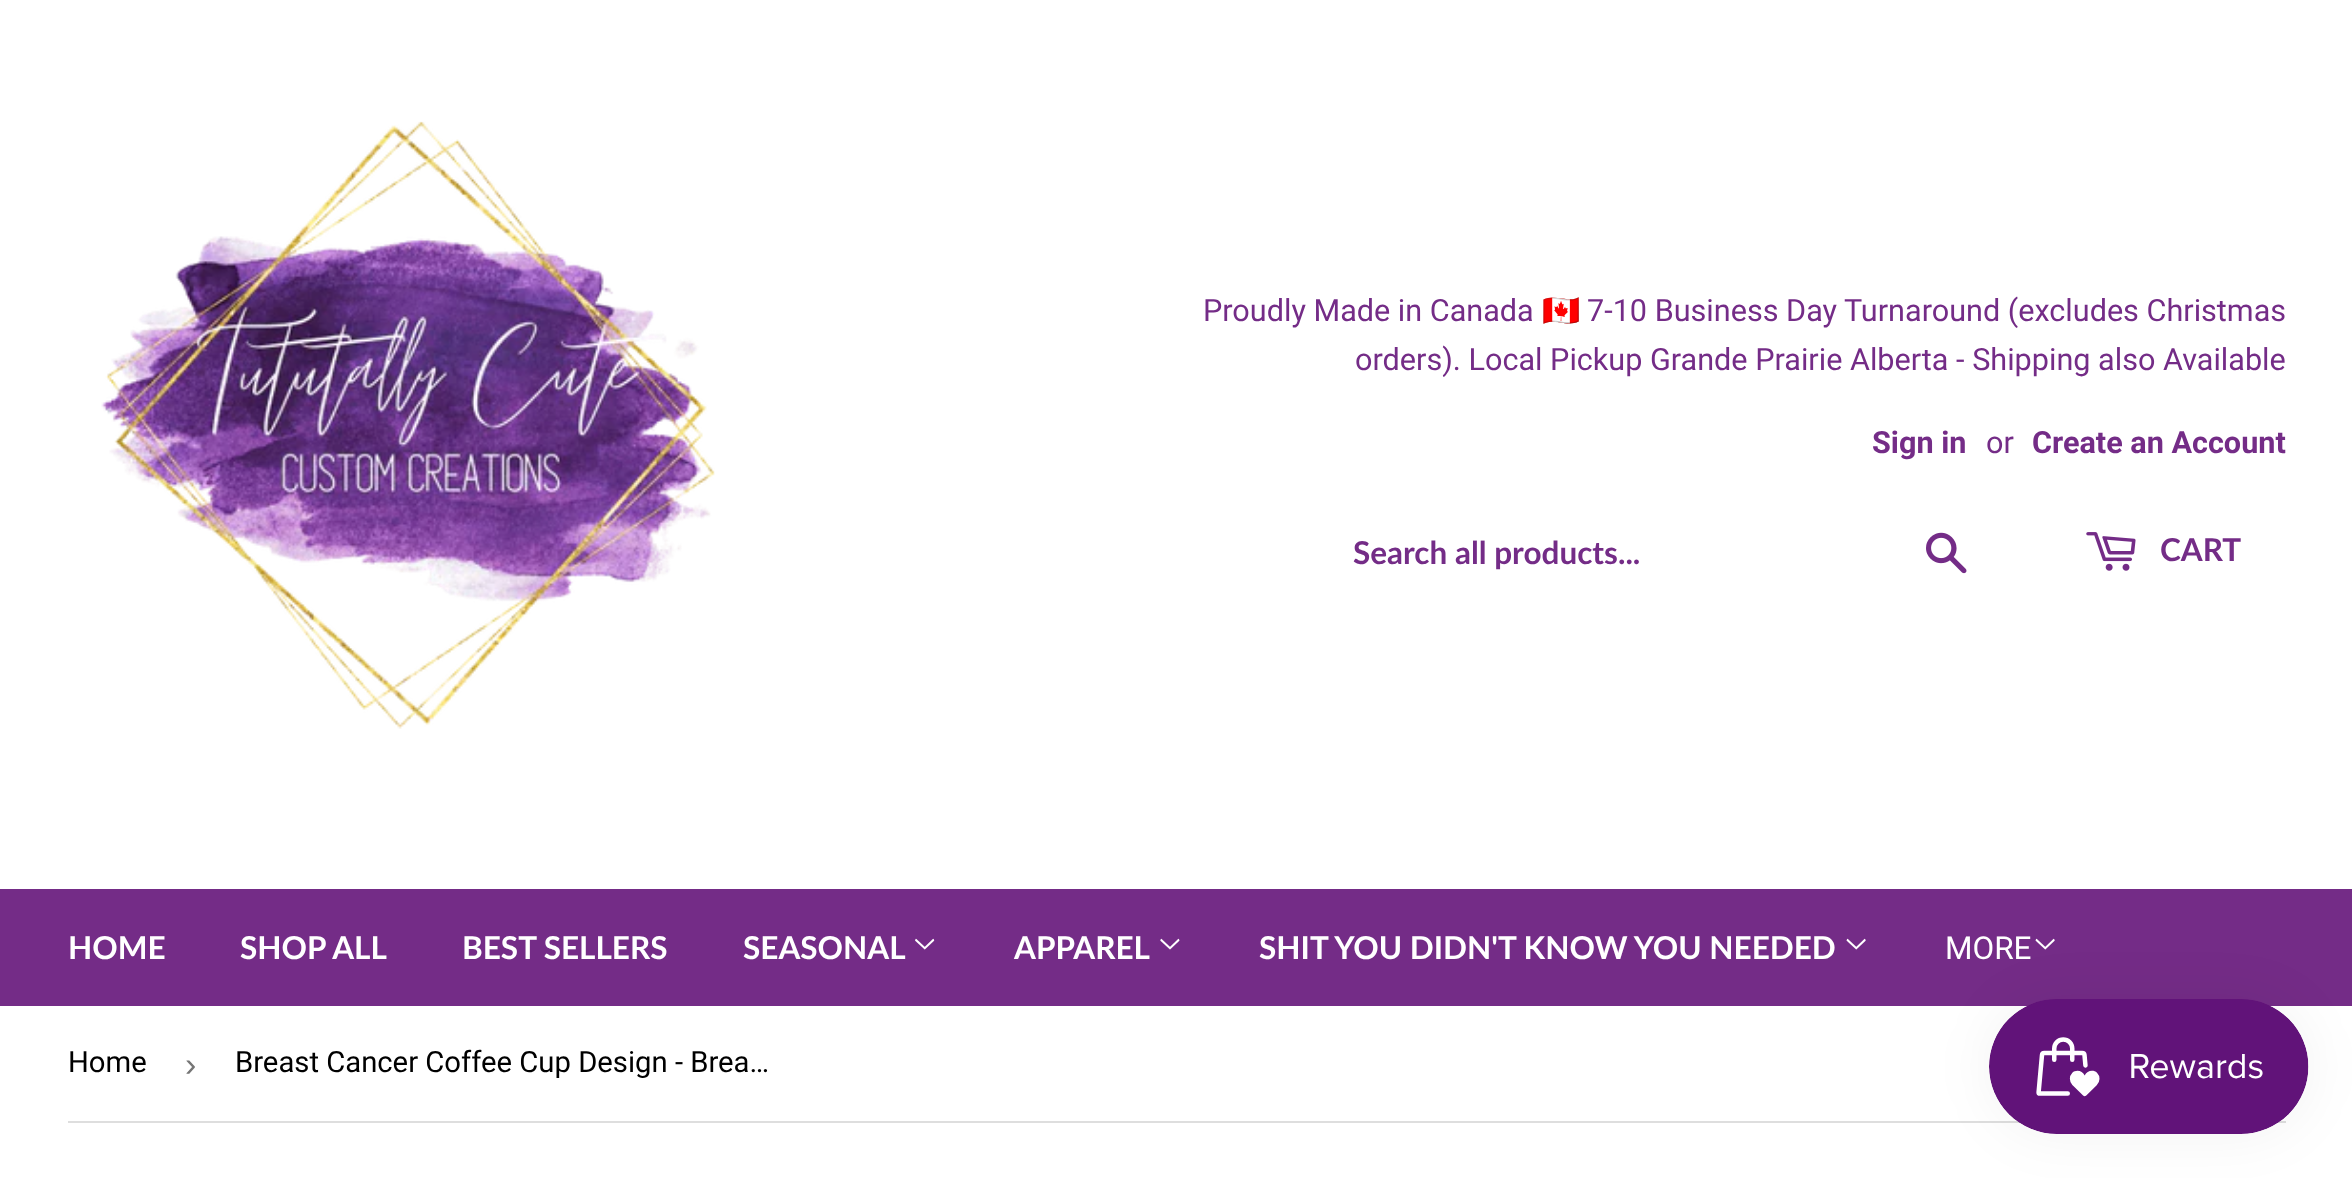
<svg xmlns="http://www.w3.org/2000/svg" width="2352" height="1178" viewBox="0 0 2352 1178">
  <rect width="100%" height="100%" fill="rgb(255,255,255)"/>
  <image x="101" y="121" width="614" height="608" href="pic1.png"/>
  <text x="1203" y="321" font-family="Roboto" font-size="30.6" fill="rgb(116,44,135)">Proudly Made in Canada</text>
  <text x="1542" y="321" font-family="Noto Color Emoji" font-size="30.6" fill="rgb(116,44,135)">🇨🇦</text>
  <g font-family="Roboto" font-size="30.6" fill="rgb(116,44,135)">
    <text x="1587" y="321">7-10 Business Day Turnaround (excludes Christmas</text>
    <text x="1355" y="370">orders). Local Pickup Grande Prairie Alberta - Shipping also Available</text>
  </g>
  <text x="1872" y="453" font-family="Roboto" font-size="30.6" font-weight="bold" fill="rgb(116,44,135)">Sign in</text>
  <text x="1986" y="453" font-family="Roboto" font-size="30.6" fill="rgb(116,44,135)">or</text>
  <text x="2032" y="453" font-family="Roboto" font-size="30.6" font-weight="bold" fill="rgb(116,44,135)">Create an Account</text>
  <text x="1353" y="564" font-family="Lato" font-size="31.5" font-weight="bold" fill="rgb(116,44,135)">Search all products...</text>
  <image x="1926" y="532" width="41" height="42" href="pic2.png"/>
  <image x="2086" y="532" width="50" height="39" href="pic3.png"/>
  <text x="2160" y="561" font-family="Lato" font-size="31.5" font-weight="bold" fill="rgb(116,44,135)">CART</text>
  <rect x="0" y="889" width="2352" height="117" fill="rgb(116,44,135)"/>
  <g font-family="Lato" font-size="31.5" font-weight="bold" fill="rgb(255,255,255)">
    <text x="68" y="959">HOME</text>
    <text x="240" y="959">SHOP ALL</text>
    <text x="462" y="959">BEST SELLERS</text>
    <text x="743" y="959">SEASONAL</text>
  </g>
  <image x="915" y="938" width="20" height="12" href="pic4.png"/>
  <text x="1014" y="959" font-family="Lato" font-size="31.5" font-weight="bold" fill="rgb(255,255,255)">APPAREL</text>
  <image x="1160" y="938" width="20" height="12" href="pic5.png"/>
  <text x="1259" y="959" font-family="Lato" font-size="31.5" font-weight="bold" fill="rgb(255,255,255)">SHIT YOU DIDN'T KNOW YOU NEEDED</text>
  <image x="1846" y="938" width="20" height="12" href="pic6.png"/>
  <text x="1945" y="959" font-family="Roboto" font-size="31.5" fill="rgb(255,255,255)">MORE</text>
  <image x="2035" y="938" width="20" height="12" href="pic6.png"/>
  <rect x="68" y="1121" width="2218" height="2" fill="rgb(222,222,222)"/>
  <text x="68" y="1072" font-family="Roboto" font-size="29.25" fill="rgb(0,0,0)">Home</text>
  <text x="185" y="1076" font-family="Liberation Sans" font-size="34" fill="rgb(118,118,118)">›</text>
  <text x="235" y="1072" font-family="Roboto" font-size="29.25" fill="rgb(0,0,0)">Breast Cancer Coffee Cup Design - Brea…</text>
  <rect x="1989" y="999" width="320" height="135" rx="67.5" fill="rgba(0,0,0,0.05)" filter="blur(28px)"/>
  <image x="1989" y="999" width="320" height="135" href="pic7.png"/>
</svg>
